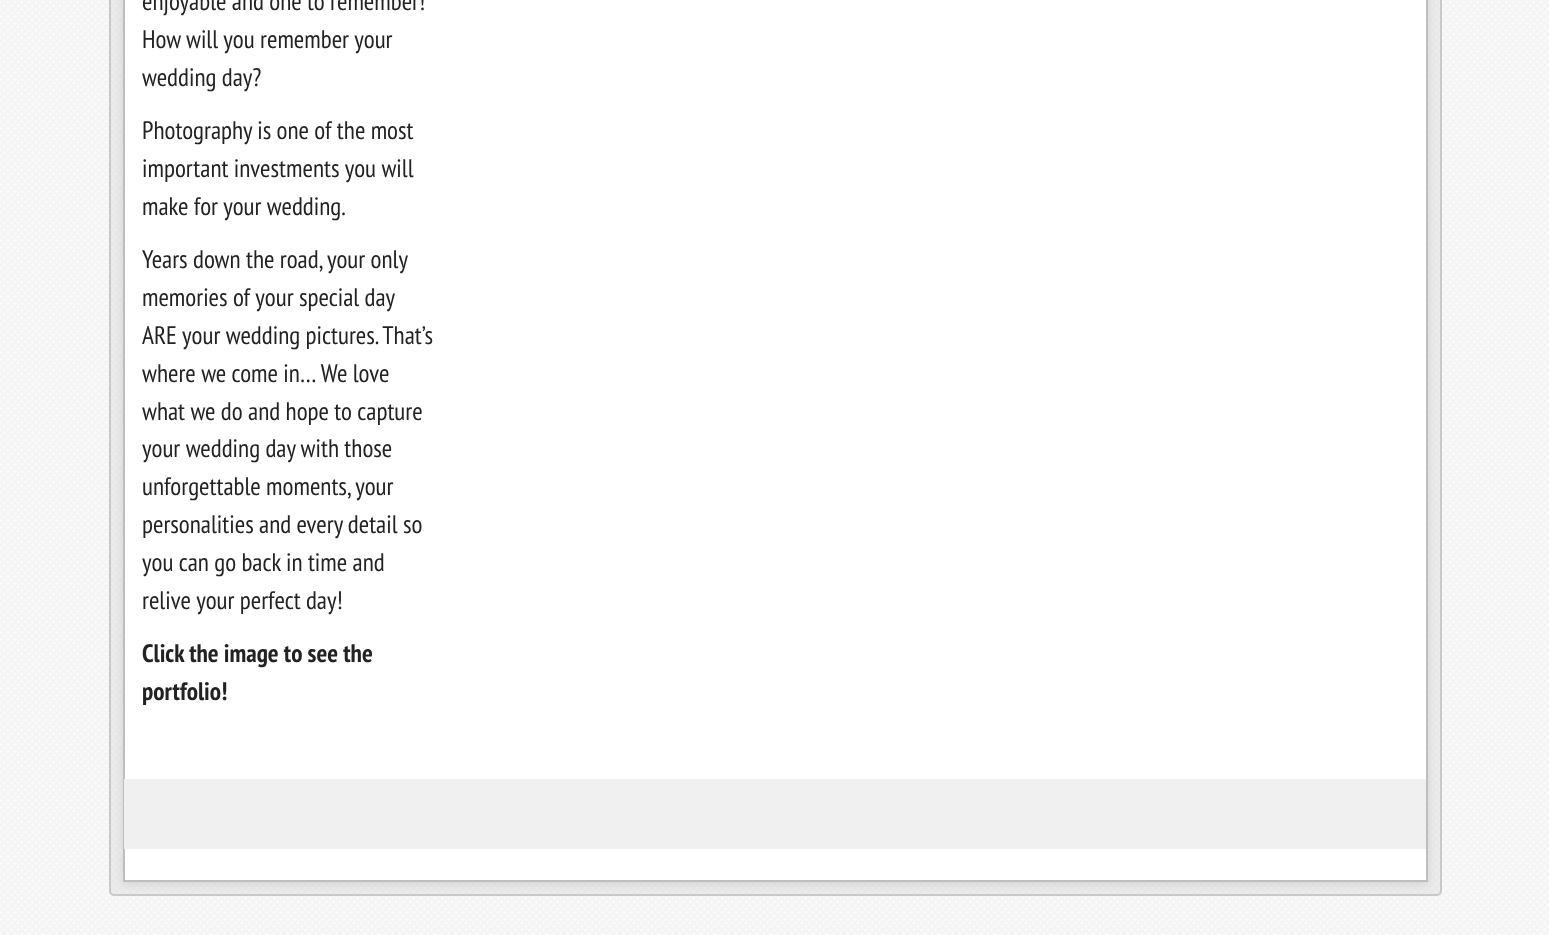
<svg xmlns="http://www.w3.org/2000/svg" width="1549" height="935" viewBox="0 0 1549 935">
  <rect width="100%" height="100%" fill="rgb(250,250,250)"/>
  <image x="0" y="0" width="1549" height="935" href="pic1.png"/>
  <rect x="109" y="-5" width="1333" height="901" rx="5" fill="rgba(125,125,125,0.1)"/>
  <rect x="110" y="-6" width="1331" height="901" rx="4" fill="none" stroke="rgba(125,125,125,0.3)" stroke-width="2"/>
  <rect x="123" y="-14" width="1305" height="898" fill="rgba(0,0,0,0.1)" filter="blur(4.5px)"/>
  <rect x="124" y="-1" width="1303" height="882" fill="rgb(255,255,255)" stroke="rgb(190,190,190)" stroke-width="2"/>
  <g font-family="PT Sans Narrow" font-size="25.25" fill="rgb(34,34,34)">
    <text>
      <tspan x="142" y="10">enjoyable and one to remember!</tspan>
      <tspan x="142" y="48">How will you remember your</tspan>
      <tspan x="142" y="86">wedding day?</tspan>
    </text>
    <text>
      <tspan x="142" y="139">Photography is one of the most</tspan>
      <tspan x="142" y="177">important investments you will</tspan>
      <tspan x="142" y="215">make for your wedding.</tspan>
    </text>
    <text>
      <tspan x="142" y="268">Years down the road, your only</tspan>
      <tspan x="142" y="306">memories of your special day</tspan>
      <tspan x="142" y="344">ARE your wedding pictures. That’s</tspan>
      <tspan x="142" y="382">where we come in… We love</tspan>
      <tspan x="142" y="420">what we do and hope to capture</tspan>
      <tspan x="142" y="457">your wedding day with those</tspan>
      <tspan x="142" y="495">unforgettable moments, your</tspan>
      <tspan x="142" y="533">personalities and every detail so</tspan>
      <tspan x="142" y="571">you can go back in time and</tspan>
      <tspan x="142" y="609">relive your perfect day!</tspan>
    </text>
  </g>
  <g font-family="PT Sans Narrow" font-size="25.25" font-weight="bold" fill="rgb(34,34,34)">
    <text>
      <tspan x="142" y="662">Click the image to see the</tspan>
      <tspan x="142" y="700">portfolio!</tspan>
    </text>
  </g>
  <rect x="124" y="779" width="1302" height="70" fill="rgb(240,240,240)"/>
</svg>
